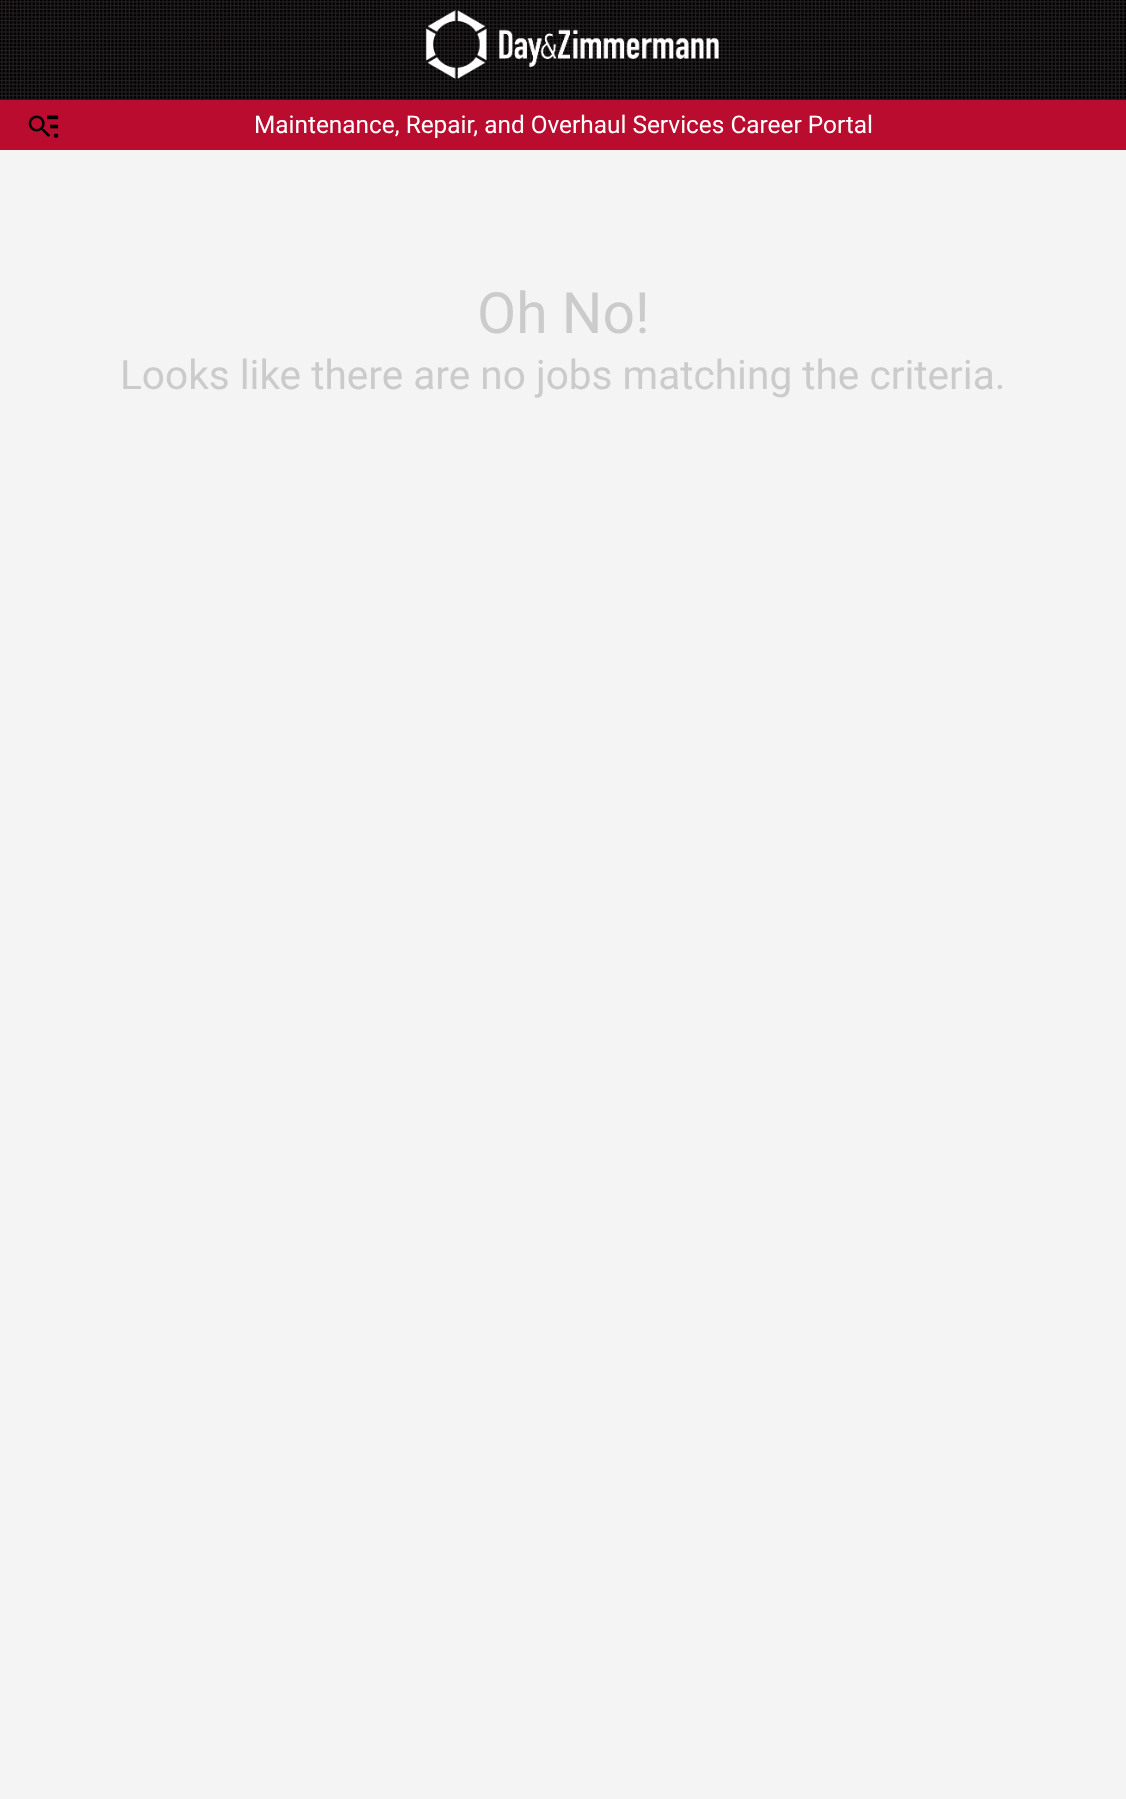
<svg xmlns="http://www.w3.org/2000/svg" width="1126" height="1799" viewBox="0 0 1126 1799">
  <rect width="100%" height="100%" fill="rgb(244,244,244)"/>
  <rect x="0" y="99" width="1126" height="1" fill="rgb(35,31,32)"/>
  <image x="0" y="0" width="1126" height="99" href="pic1.png"/>
  <image x="426" y="10" width="293" height="69" href="pic2.png"/>
  <rect x="0" y="100" width="1126" height="50" fill="rgb(186,12,47)"/>
  <image x="28" y="115" width="31" height="23" href="pic3.png"/>
  <text x="254" y="133" font-family="Roboto" font-size="24.4" fill="rgb(255,255,255)">Maintenance, Repair, and Overhaul Services Career Portal</text>
  <text x="477" y="333" font-family="Roboto" font-size="57" fill="rgb(203,203,203)">Oh No!</text>
  <text x="120" y="389" font-family="Roboto" font-size="40.6" fill="rgb(203,203,203)">Looks like there are no jobs matching the criteria.</text>
</svg>
